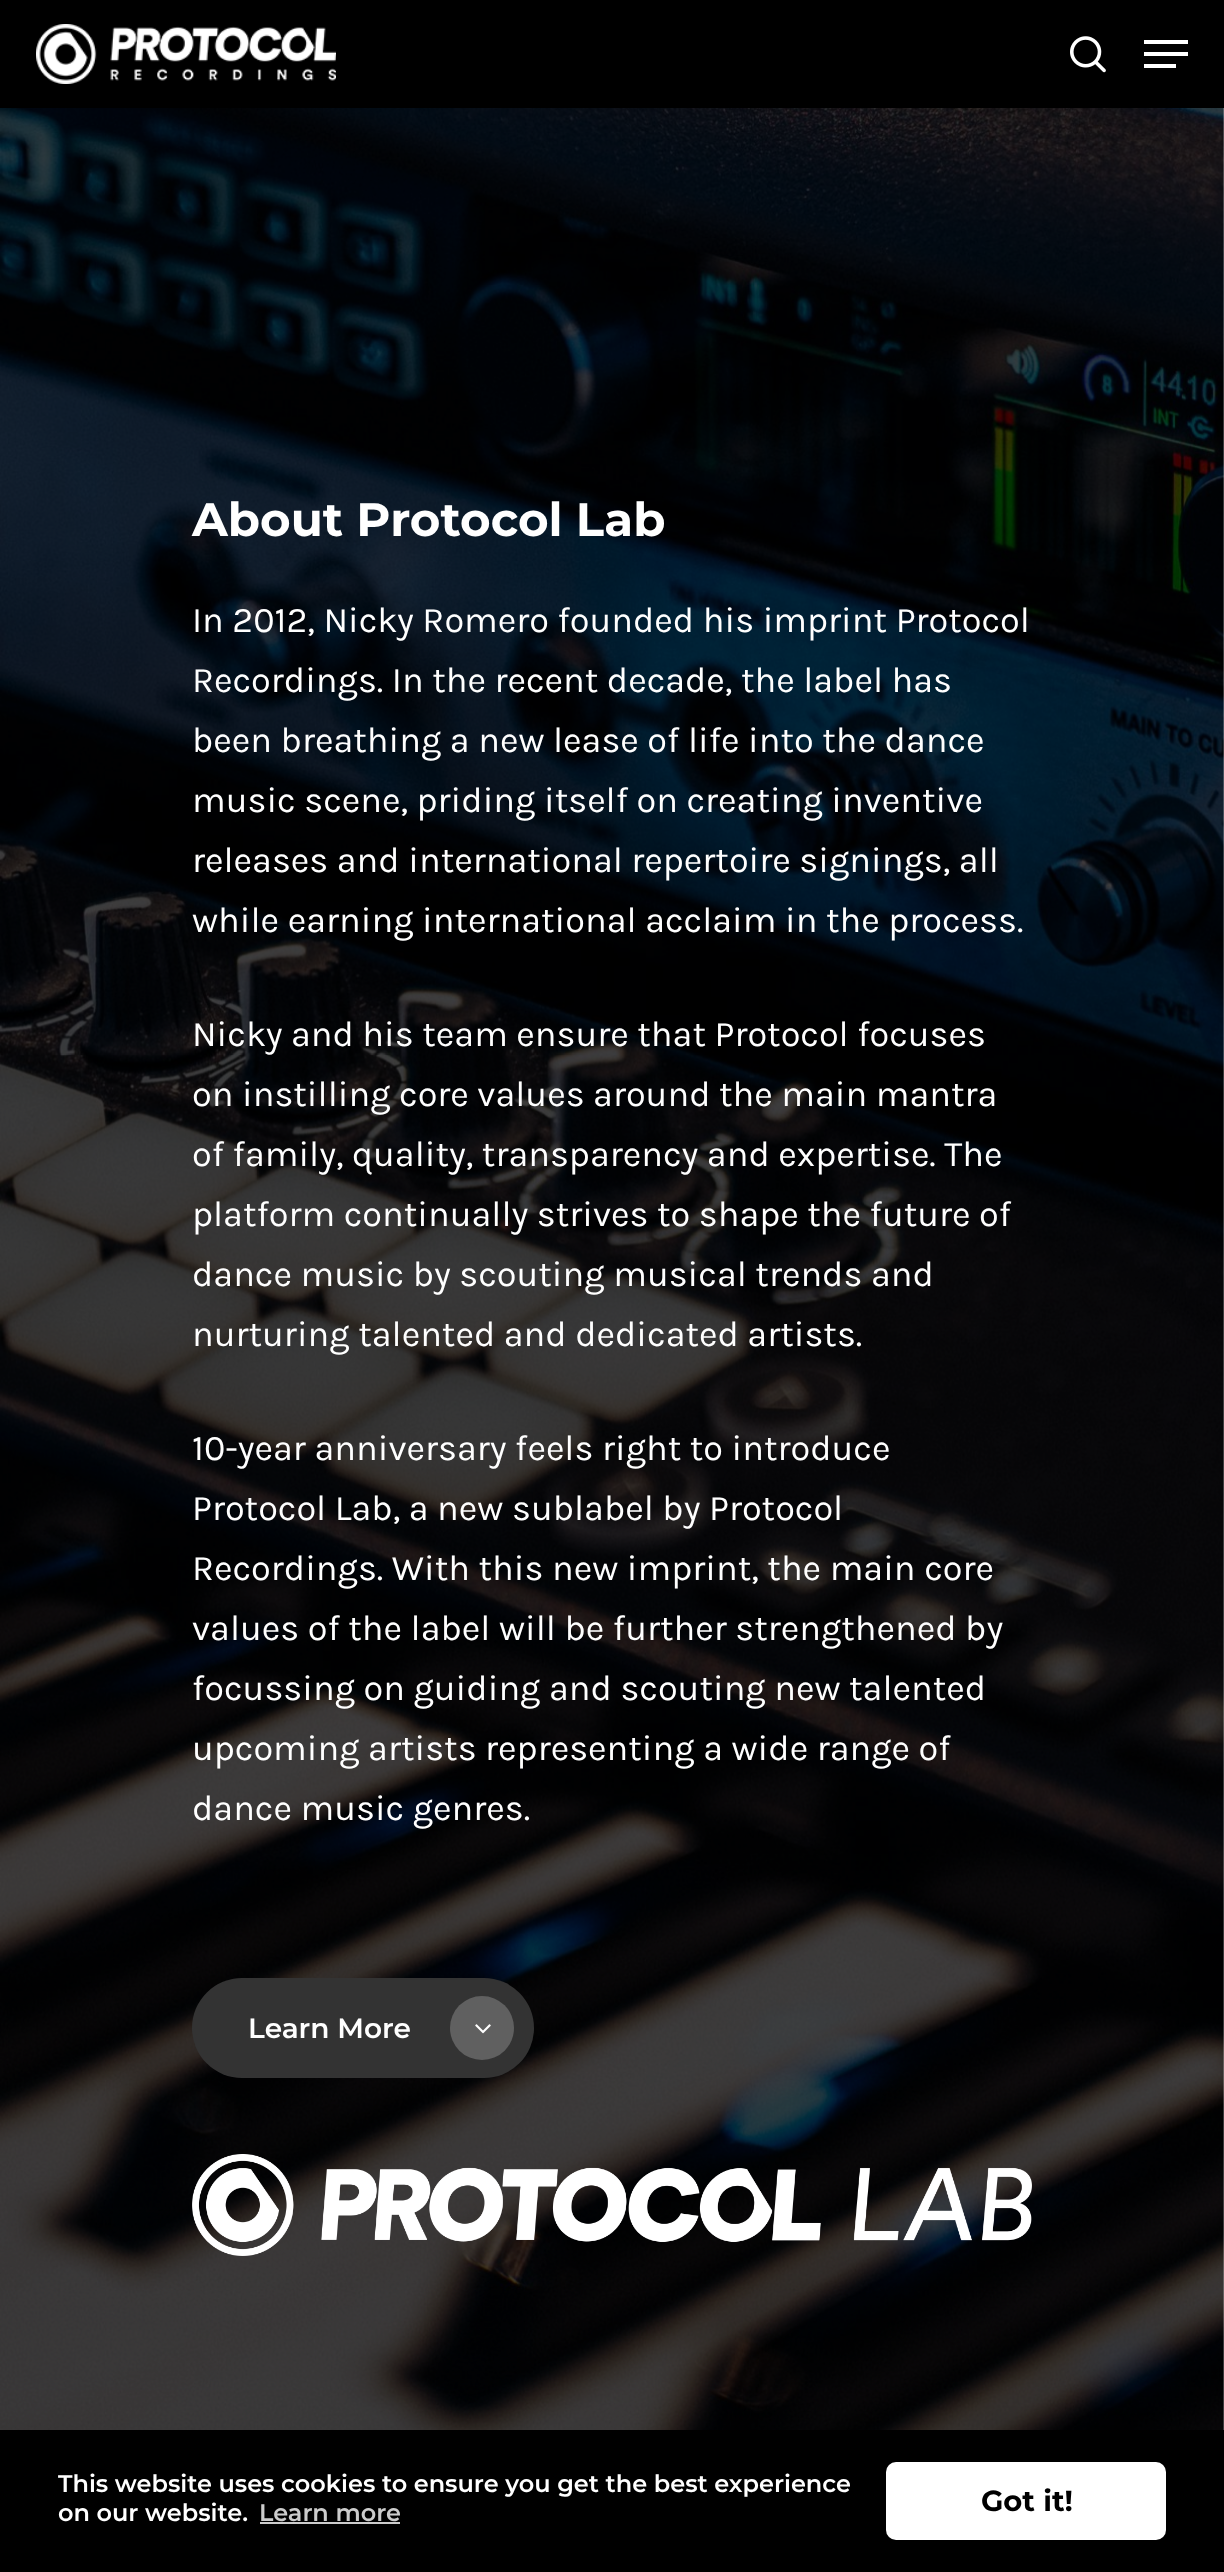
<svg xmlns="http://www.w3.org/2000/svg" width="1224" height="2572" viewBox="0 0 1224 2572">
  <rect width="100%" height="100%" fill="rgb(255,255,255)"/>
  <rect x="0" y="0" width="1224" height="108" fill="rgb(0,0,0)"/>
  <image x="36" y="24" width="300" height="60" href="pic1.png"/>
  <image x="1070" y="36" width="36" height="37" href="pic2.png"/>
  <rect x="1144" y="40" width="44" height="4" fill="rgb(255,255,255)"/>
  <rect x="1144" y="64" width="32" height="4" fill="rgb(255,255,255)"/>
  <rect x="1144" y="52" width="44" height="4" fill="rgb(255,255,255)"/>
  <image x="0" y="108" width="1224" height="2322" href="pic3.png"/>
  <text x="192" y="536" font-family="Montserrat" font-size="46.75" font-weight="bold" fill="rgb(255,255,255)">About Protocol Lab</text>
  <g font-family="Karla" font-size="36" fill="rgb(255,255,255)">
    <text>
      <tspan x="192" y="632">In 2012, Nicky Romero founded his imprint Protocol</tspan>
      <tspan x="192" y="692">Recordings. In the recent decade, the label has</tspan>
      <tspan x="192" y="752">been breathing a new lease of life into the dance</tspan>
      <tspan x="192" y="812">music scene, priding itself on creating inventive</tspan>
      <tspan x="192" y="872">releases and international repertoire signings, all</tspan>
      <tspan x="192" y="932">while earning international acclaim in the process.</tspan>
    </text>
    <text>
      <tspan x="192" y="1046">Nicky and his team ensure that Protocol focuses</tspan>
      <tspan x="192" y="1106">on instilling core values around the main mantra</tspan>
      <tspan x="192" y="1166">of family, quality, transparency and expertise. The</tspan>
      <tspan x="192" y="1226">platform continually strives to shape the future of</tspan>
      <tspan x="192" y="1286">dance music by scouting musical trends and</tspan>
      <tspan x="192" y="1346">nurturing talented and dedicated artists.</tspan>
    </text>
    <text>
      <tspan x="192" y="1460">10-year anniversary feels right to introduce</tspan>
      <tspan x="192" y="1520">Protocol Lab, a new sublabel by Protocol</tspan>
      <tspan x="192" y="1580">Recordings. With this new imprint, the main core</tspan>
      <tspan x="192" y="1640">values of the label will be further strengthened by</tspan>
      <tspan x="192" y="1700">focussing on guiding and scouting new talented</tspan>
      <tspan x="192" y="1760">upcoming artists representing a wide range of</tspan>
      <tspan x="192" y="1820">dance music genres.</tspan>
    </text>
  </g>
  <rect x="192" y="1978" width="342" height="100" rx="50" fill="rgb(51,51,51)"/>
  <text x="248" y="2038" font-family="Montserrat" font-size="28" font-weight="600" fill="rgb(255,255,255)">Learn More</text>
  <circle cx="482" cy="2028" r="32" fill="rgb(96,96,96)"/>
  <image x="475" y="2024" width="16" height="10" href="pic4.png"/>
  <image x="192" y="2154" width="840" height="102" href="pic5.png"/>
  <rect x="0" y="2430" width="1224" height="142" fill="rgb(0,0,0)"/>
  <g font-family="Montserrat" font-size="24" font-weight="600" fill="rgb(255,255,255)">
    <text>
      <tspan x="58" y="2492">This website uses cookies to ensure you get the best experience</tspan>
      <tspan x="58" y="2521">on our website.</tspan>
    </text>
  </g>
  <text x="259" y="2521" font-family="Montserrat" font-size="24" font-weight="600" fill="rgb(204,204,204)">Learn more</text>
  <rect x="260" y="2522" width="140" height="2" fill="rgb(204,204,204)"/>
  <rect x="886" y="2462" width="280" height="78" rx="10" fill="rgb(255,255,255)"/>
  <text x="981" y="2511" font-family="Montserrat" font-size="29" font-weight="bold" fill="rgb(0,0,0)">Got it!</text>
</svg>
